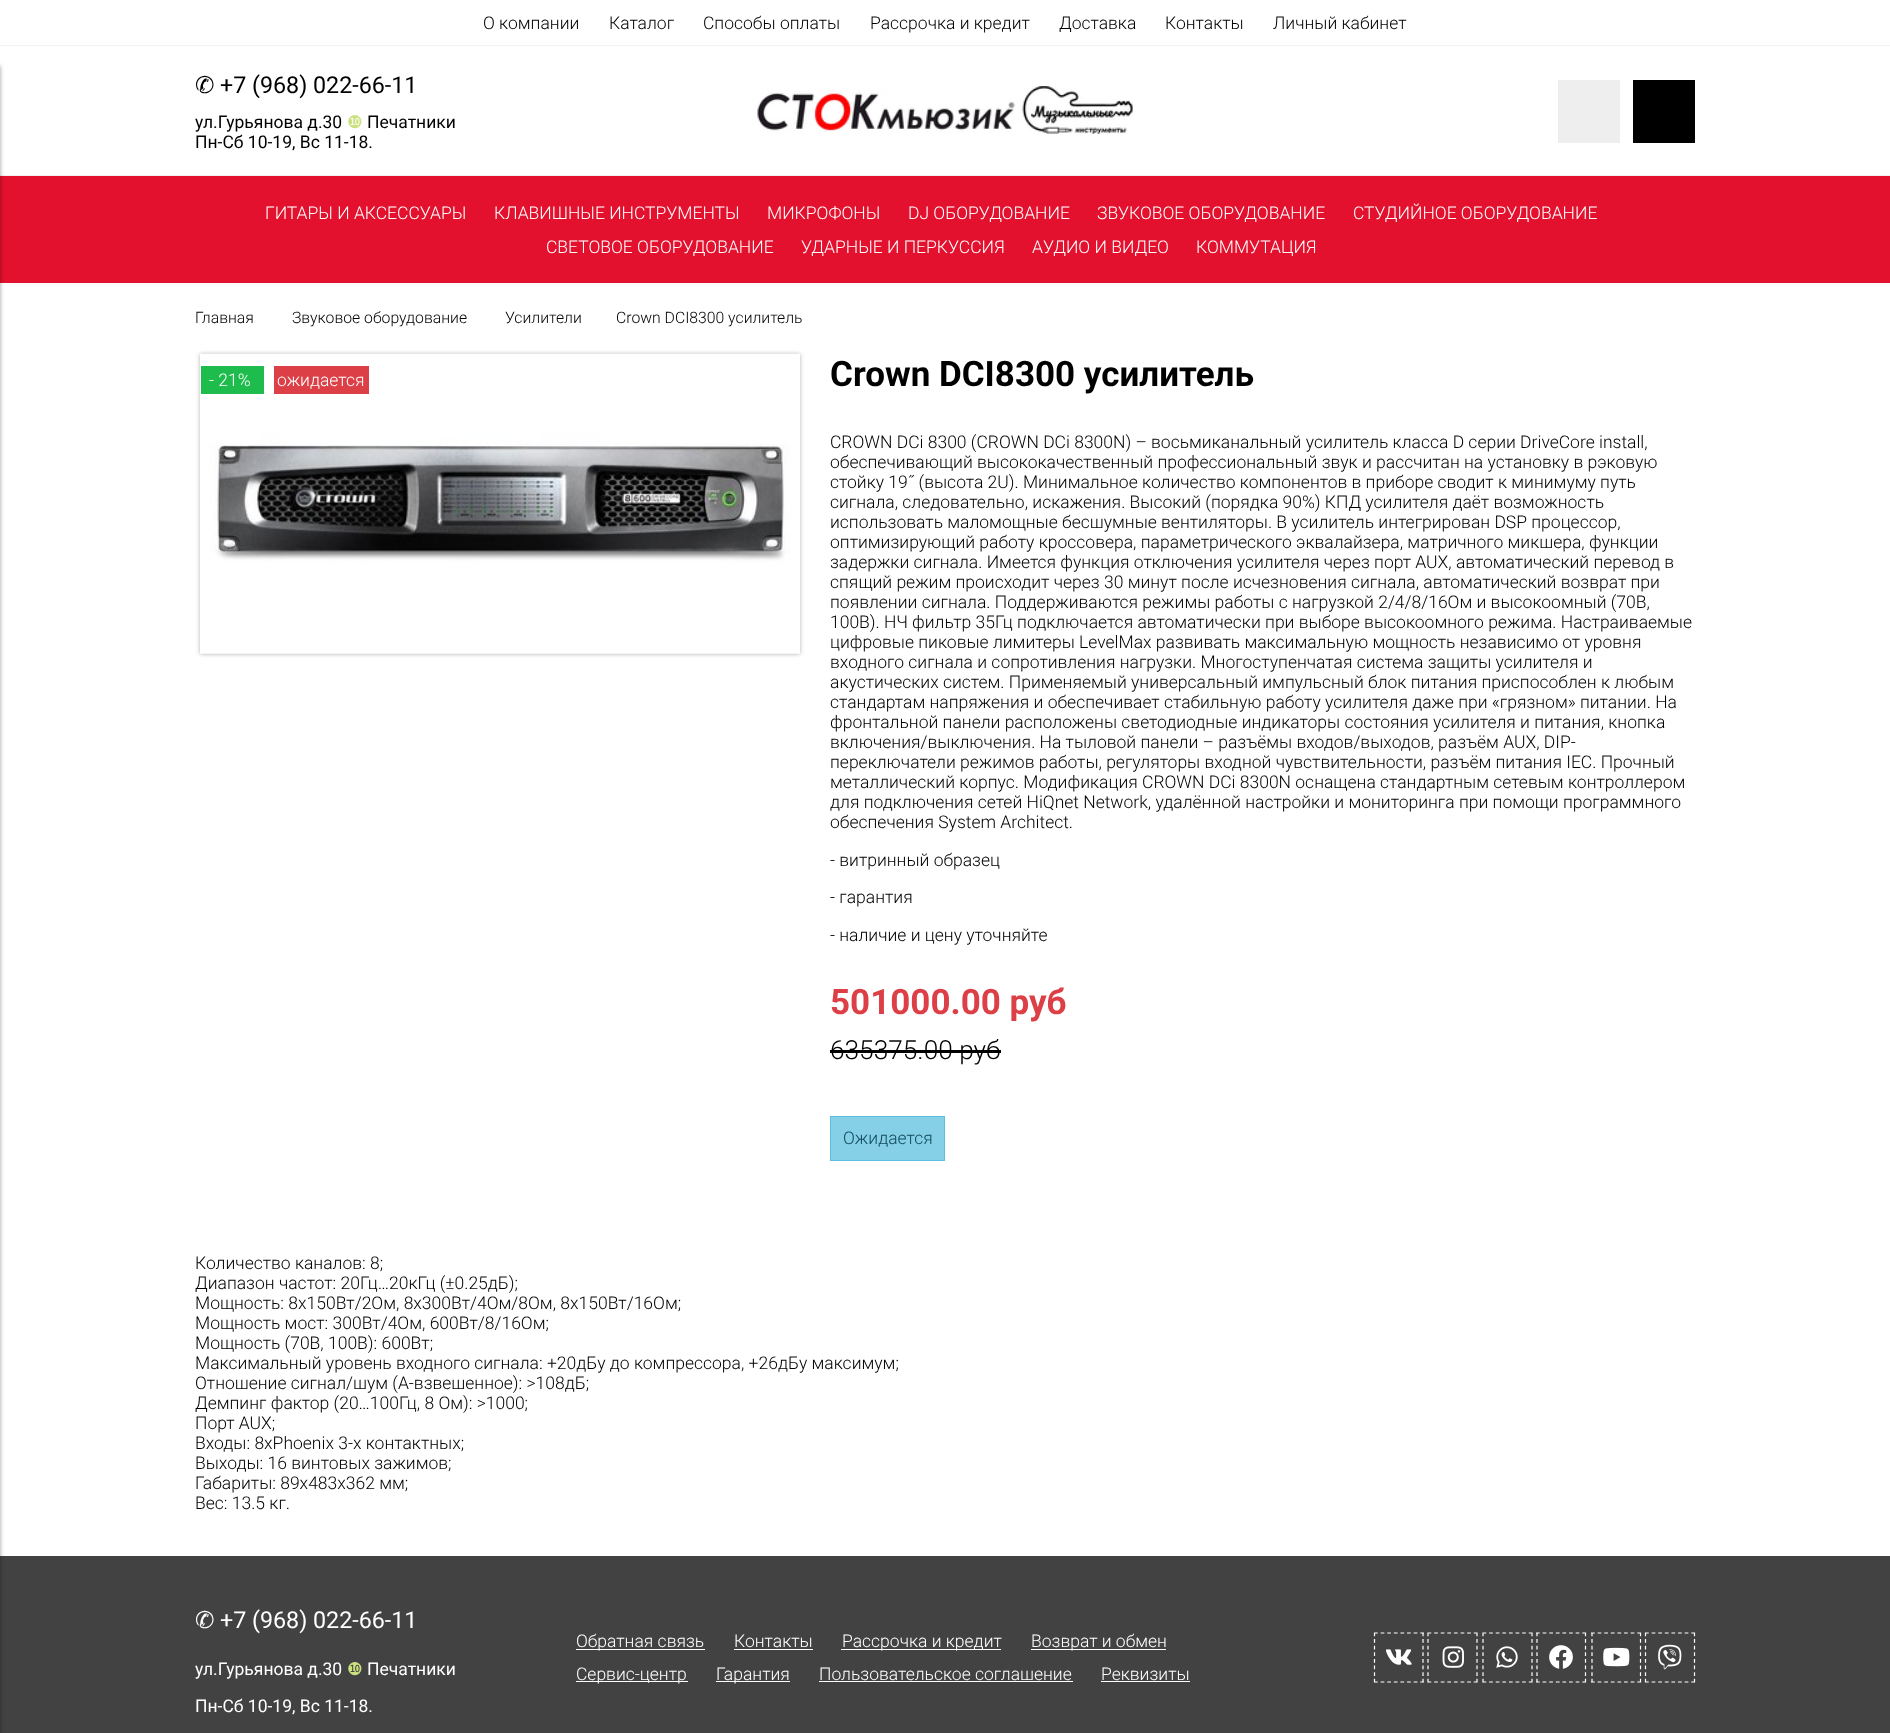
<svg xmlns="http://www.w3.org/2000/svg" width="1890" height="1733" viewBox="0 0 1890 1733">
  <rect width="100%" height="100%" fill="rgb(66,66,66)"/>
  <rect x="0" y="0" width="1890" height="1556" fill="rgb(255,255,255)"/>
  <rect x="0" y="175" width="1890" height="1" fill="rgb(242,242,242)"/>
  <rect x="0" y="176" width="1890" height="107" fill="rgb(227,17,46)"/>
  <rect x="-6" y="66" width="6" height="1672" fill="rgba(0,0,0,0.4)" filter="blur(2px)"/>
  <rect x="0" y="45" width="1890" height="1" fill="rgb(242,242,242)"/>
  <g font-family="Roboto" font-size="17.5" font-weight="300" fill="rgb(0,0,0)">
    <text x="483" y="29">О компании</text>
    <text x="609" y="29">Каталог</text>
    <text x="703" y="29">Способы оплаты</text>
    <text x="870" y="29">Рассрочка и кредит</text>
    <text x="1059" y="29">Доставка</text>
    <text x="1165" y="29">Контакты</text>
    <text x="1273" y="29">Личный кабинет</text>
  </g>
  <text x="195" y="93" font-family="DejaVu Sans" font-size="23.25" fill="rgb(0,0,0)">✆</text>
  <text x="220" y="93" font-family="Roboto" font-size="23.25" fill="rgb(0,0,0)">+7 (968) 022-66-11</text>
  <text x="195" y="128" font-family="Roboto" font-size="17.5" fill="rgb(0,0,0)">ул.Гурьянова д.30</text>
  <text x="347" y="128" font-family="DejaVu Sans" font-size="17.5" fill="rgb(203,225,127)">❿</text>
  <g font-family="Roboto" font-size="17.5" fill="rgb(0,0,0)">
    <text x="367" y="128">Печатники</text>
    <text x="195" y="148">Пн-Сб 10-19, Вс 11-18.</text>
  </g>
  <image x="757" y="86" width="376" height="48" href="pic1.png"/>
  <rect x="1558" y="80" width="62" height="63" fill="rgb(238,238,238)"/>
  <rect x="1633" y="80" width="62" height="63" fill="rgb(0,0,0)"/>
  <g font-family="Roboto" font-size="17.5" font-weight="300" fill="rgb(255,255,255)">
    <text x="265" y="219">ГИТАРЫ И АКСЕССУАРЫ</text>
    <text x="494" y="219">КЛАВИШНЫЕ ИНСТРУМЕНТЫ</text>
    <text x="767" y="219">МИКРОФОНЫ</text>
    <text x="908" y="219">DJ ОБОРУДОВАНИЕ</text>
    <text x="1097" y="219">ЗВУКОВОЕ ОБОРУДОВАНИЕ</text>
    <text x="1353" y="219">СТУДИЙНОЕ ОБОРУДОВАНИЕ</text>
    <text x="546" y="253">СВЕТОВОЕ ОБОРУДОВАНИЕ</text>
    <text x="801" y="253">УДАРНЫЕ И ПЕРКУССИЯ</text>
    <text x="1032" y="253">АУДИО И ВИДЕО</text>
    <text x="1196" y="253">КОММУТАЦИЯ</text>
  </g>
  <g font-family="Roboto" font-size="15.75" font-weight="300" fill="rgb(0,0,0)">
    <text x="195" y="323">Главная</text>
    <text x="292" y="323">Звуковое оборудование</text>
    <text x="505" y="323">Усилители</text>
    <text x="616" y="323">Crown DCI8300 усилитель</text>
  </g>
  <rect x="200" y="354" width="600" height="300" fill="rgba(0,0,0,0.3)" filter="blur(2px)"/>
  <image x="200" y="353" width="600" height="301" href="pic2.png"/>
  <rect x="201" y="366" width="63" height="28" fill="rgb(30,187,77)"/>
  <text x="209" y="386" font-family="Roboto" font-size="17.5" font-weight="300" fill="rgb(255,255,255)">- 21%</text>
  <rect x="274" y="366" width="95" height="28" fill="rgb(221,63,70)"/>
  <text x="277" y="386" font-family="Roboto" font-size="17.5" font-weight="300" fill="rgb(255,255,255)">ожидается</text>
  <text x="830" y="386" font-family="Roboto" font-size="35" font-weight="bold" fill="rgb(0,0,0)">Crown DCI8300 усилитель</text>
  <g font-family="Roboto" font-size="17.5" font-weight="300" fill="rgb(0,0,0)">
    <text>
      <tspan x="830" y="448">CROWN DCi 8300 (CROWN DCi 8300N) – восьмиканальный усилитель класса D серии DriveCore install,</tspan>
      <tspan x="830" y="468">обеспечивающий высококачественный профессиональный звук и рассчитан на установку в рэковую</tspan>
      <tspan x="830" y="488">стойку 19˝ (высота 2U). Минимальное количество компонентов в приборе сводит к минимуму путь</tspan>
      <tspan x="830" y="508">сигнала, следовательно, искажения. Высокий (порядка 90%) КПД усилителя даёт возможность</tspan>
      <tspan x="830" y="528">использовать маломощные бесшумные вентиляторы. В усилитель интегрирован DSP процессор,</tspan>
      <tspan x="830" y="548">оптимизирующий работу кроссовера, параметрического эквалайзера, матричного микшера, функции</tspan>
      <tspan x="830" y="568">задержки сигнала. Имеется функция отключения усилителя через порт AUX, автоматический перевод в</tspan>
      <tspan x="830" y="588">спящий режим происходит через 30 минут после исчезновения сигнала, автоматический возврат при</tspan>
      <tspan x="830" y="608">появлении сигнала. Поддерживаются режимы работы с нагрузкой 2/4/8/16Ом и высокоомный (70В,</tspan>
      <tspan x="830" y="628">100В). НЧ фильтр 35Гц подключается автоматически при выборе высокоомного режима. Настраиваемые</tspan>
      <tspan x="830" y="648">цифровые пиковые лимитеры LevelMax развивать максимальную мощность независимо от уровня</tspan>
      <tspan x="830" y="668">входного сигнала и сопротивления нагрузки. Многоступенчатая система защиты усилителя и</tspan>
      <tspan x="830" y="688">акустических систем. Применяемый универсальный импульсный блок питания приспособлен к любым</tspan>
      <tspan x="830" y="708">стандартам напряжения и обеспечивает стабильную работу усилителя даже при «грязном» питании. На</tspan>
      <tspan x="830" y="728">фронтальной панели расположены светодиодные индикаторы состояния усилителя и питания, кнопка</tspan>
      <tspan x="830" y="748">включения/выключения. На тыловой панели – разъёмы входов/выходов, разъём AUX, DIP-</tspan>
      <tspan x="830" y="768">переключатели режимов работы, регуляторы входной чувствительности, разъём питания IEC. Прочный</tspan>
      <tspan x="830" y="788">металлический корпус. Модификация CROWN DCi 8300N оснащена стандартным сетевым контроллером</tspan>
      <tspan x="830" y="808">для подключения сетей HiQnet Network, удалённой настройки и мониторинга при помощи программного</tspan>
      <tspan x="830" y="828">обеспечения System Architect.</tspan>
    </text>
    <text x="830" y="866">- витринный образец</text>
    <text x="830" y="903">- гарантия</text>
    <text x="830" y="941">- наличие и цену уточняйте</text>
  </g>
  <text x="830" y="1014" font-family="Roboto" font-size="35" font-weight="bold" fill="rgb(221,63,70)">501000.00 руб</text>
  <text x="830" y="1059" font-family="Roboto" font-size="26.25" font-weight="300" fill="rgb(0,0,0)">635375.00 руб</text>
  <rect x="830" y="1050" width="171" height="3" fill="rgb(0,0,0)"/>
  <rect x="830.5" y="1116.5" width="114" height="44" fill="rgb(133,208,231)" stroke="rgb(91,192,222)"/>
  <text x="843" y="1144" font-family="Roboto" font-size="17.5" font-weight="300" fill="rgb(18,74,91)">Ожидается</text>
  <g font-family="Roboto" font-size="17.5" font-weight="300" fill="rgb(0,0,0)">
    <text>
      <tspan x="195" y="1269">Количество каналов: 8;</tspan>
      <tspan x="195" y="1289">Диапазон частот: 20Гц…20кГц (±0.25дБ);</tspan>
      <tspan x="195" y="1309">Мощность: 8х150Вт/2Ом, 8х300Вт/4Ом/8Ом, 8х150Вт/16Ом;</tspan>
      <tspan x="195" y="1329">Мощность мост: 300Вт/4Ом, 600Вт/8/16Ом;</tspan>
      <tspan x="195" y="1349">Мощность (70В, 100В): 600Вт;</tspan>
      <tspan x="195" y="1369">Максимальный уровень входного сигнала: +20дБу до компрессора, +26дБу максимум;</tspan>
      <tspan x="195" y="1389">Отношение сигнал/шум (А-взвешенное): &gt;108дБ;</tspan>
      <tspan x="195" y="1409">Демпинг фактор (20…100Гц, 8 Ом): &gt;1000;</tspan>
      <tspan x="195" y="1429">Порт AUX;</tspan>
      <tspan x="195" y="1449">Входы: 8хPhoenix 3-х контактных;</tspan>
      <tspan x="195" y="1469">Выходы: 16 винтовых зажимов;</tspan>
      <tspan x="195" y="1489">Габариты: 89х483х362 мм;</tspan>
      <tspan x="195" y="1509">Вес: 13.5 кг.</tspan>
    </text>
  </g>
  <text x="195" y="1628" font-family="DejaVu Sans" font-size="23.25" fill="rgb(255,255,255)">✆</text>
  <text x="220" y="1628" font-family="Roboto" font-size="23.25" fill="rgb(255,255,255)">+7 (968) 022-66-11</text>
  <text x="195" y="1675" font-family="Roboto" font-size="17.5" fill="rgb(255,255,255)">ул.Гурьянова д.30</text>
  <text x="347" y="1675" font-family="DejaVu Sans" font-size="17.5" fill="rgb(203,225,127)">❿</text>
  <g font-family="Roboto" font-size="17.5" fill="rgb(255,255,255)">
    <text x="367" y="1675">Печатники</text>
    <text x="195" y="1712">Пн-Сб 10-19, Вс 11-18.</text>
  </g>
  <rect x="576" y="1649" width="129" height="1" fill="rgb(255,255,255)"/>
  <g font-family="Roboto" font-size="17.5" font-weight="300" fill="rgb(255,255,255)">
    <text x="576" y="1647">Обратная связь</text>
    <text x="734" y="1647">Контакты</text>
  </g>
  <rect x="734" y="1649" width="79" height="1" fill="rgb(255,255,255)"/>
  <rect x="841" y="1649" width="160" height="1" fill="rgb(255,255,255)"/>
  <text x="842" y="1647" font-family="Roboto" font-size="17.5" font-weight="300" fill="rgb(255,255,255)">Рассрочка и кредит</text>
  <rect x="1031" y="1649" width="135" height="1" fill="rgb(255,255,255)"/>
  <text x="1031" y="1647" font-family="Roboto" font-size="17.5" font-weight="300" fill="rgb(255,255,255)">Возврат и обмен</text>
  <rect x="576" y="1681" width="112" height="1" fill="rgb(255,255,255)"/>
  <text x="576" y="1680" font-family="Roboto" font-size="17.5" font-weight="300" fill="rgb(255,255,255)">Сервис-центр</text>
  <rect x="716" y="1681" width="74" height="1" fill="rgb(255,255,255)"/>
  <g font-family="Roboto" font-size="17.5" font-weight="300" fill="rgb(255,255,255)">
    <text x="716" y="1680">Гарантия</text>
    <text x="819" y="1680">Пользовательское соглашение</text>
  </g>
  <rect x="819" y="1681" width="254" height="1" fill="rgb(255,255,255)"/>
  <text x="1101" y="1680" font-family="Roboto" font-size="17.5" font-weight="300" fill="rgb(255,255,255)">Реквизиты</text>
  <rect x="1101" y="1681" width="89" height="1" fill="rgb(255,255,255)"/>
  <path d="M1374 1633H1424M1423 1632.5V1682.5M1374 1682H1424M1374.5 1632.5V1682.5" fill="none" stroke="rgb(255,255,255)" stroke-width="1.2" stroke-dasharray="3.75 2.86"/>
  <image x="1385" y="1649" width="27" height="16" href="pic3.png"/>
  <path d="M1427.5 1633H1477.5M1477 1632.5V1682.5M1427.5 1682H1477.5M1428 1632.5V1682.5" fill="none" stroke="rgb(255,255,255)" stroke-width="1.2" stroke-dasharray="3.75 2.86"/>
  <image x="1442" y="1646" width="22" height="22" href="pic4.png"/>
  <path d="M1482.5 1633H1532.5M1532 1632.5V1682.5M1482.5 1682H1532.5M1483 1632.5V1682.5" fill="none" stroke="rgb(255,255,255)" stroke-width="1.2" stroke-dasharray="3.75 2.86"/>
  <image x="1496" y="1646" width="22" height="22" href="pic5.png"/>
  <path d="M1536 1633H1586M1585.5 1632.5V1682.5M1536 1682H1586M1537 1632.5V1682.5" fill="none" stroke="rgb(255,255,255)" stroke-width="1.2" stroke-dasharray="3.75 2.86"/>
  <image x="1549" y="1645" width="24" height="24" href="pic6.png"/>
  <path d="M1591 1633H1641M1640.5 1632.5V1682.5M1591 1682H1641M1592 1632.5V1682.5" fill="none" stroke="rgb(255,255,255)" stroke-width="1.2" stroke-dasharray="3.75 2.86"/>
  <image x="1603" y="1647" width="27" height="20" href="pic7.png"/>
  <path d="M1645 1633H1695M1694.5 1632.5V1682.5M1645 1682H1695M1645.5 1632.5V1682.5" fill="none" stroke="rgb(255,255,255)" stroke-width="1.2" stroke-dasharray="3.75 2.86"/>
  <image x="1658" y="1644" width="24" height="26" href="pic8.png"/>
</svg>
